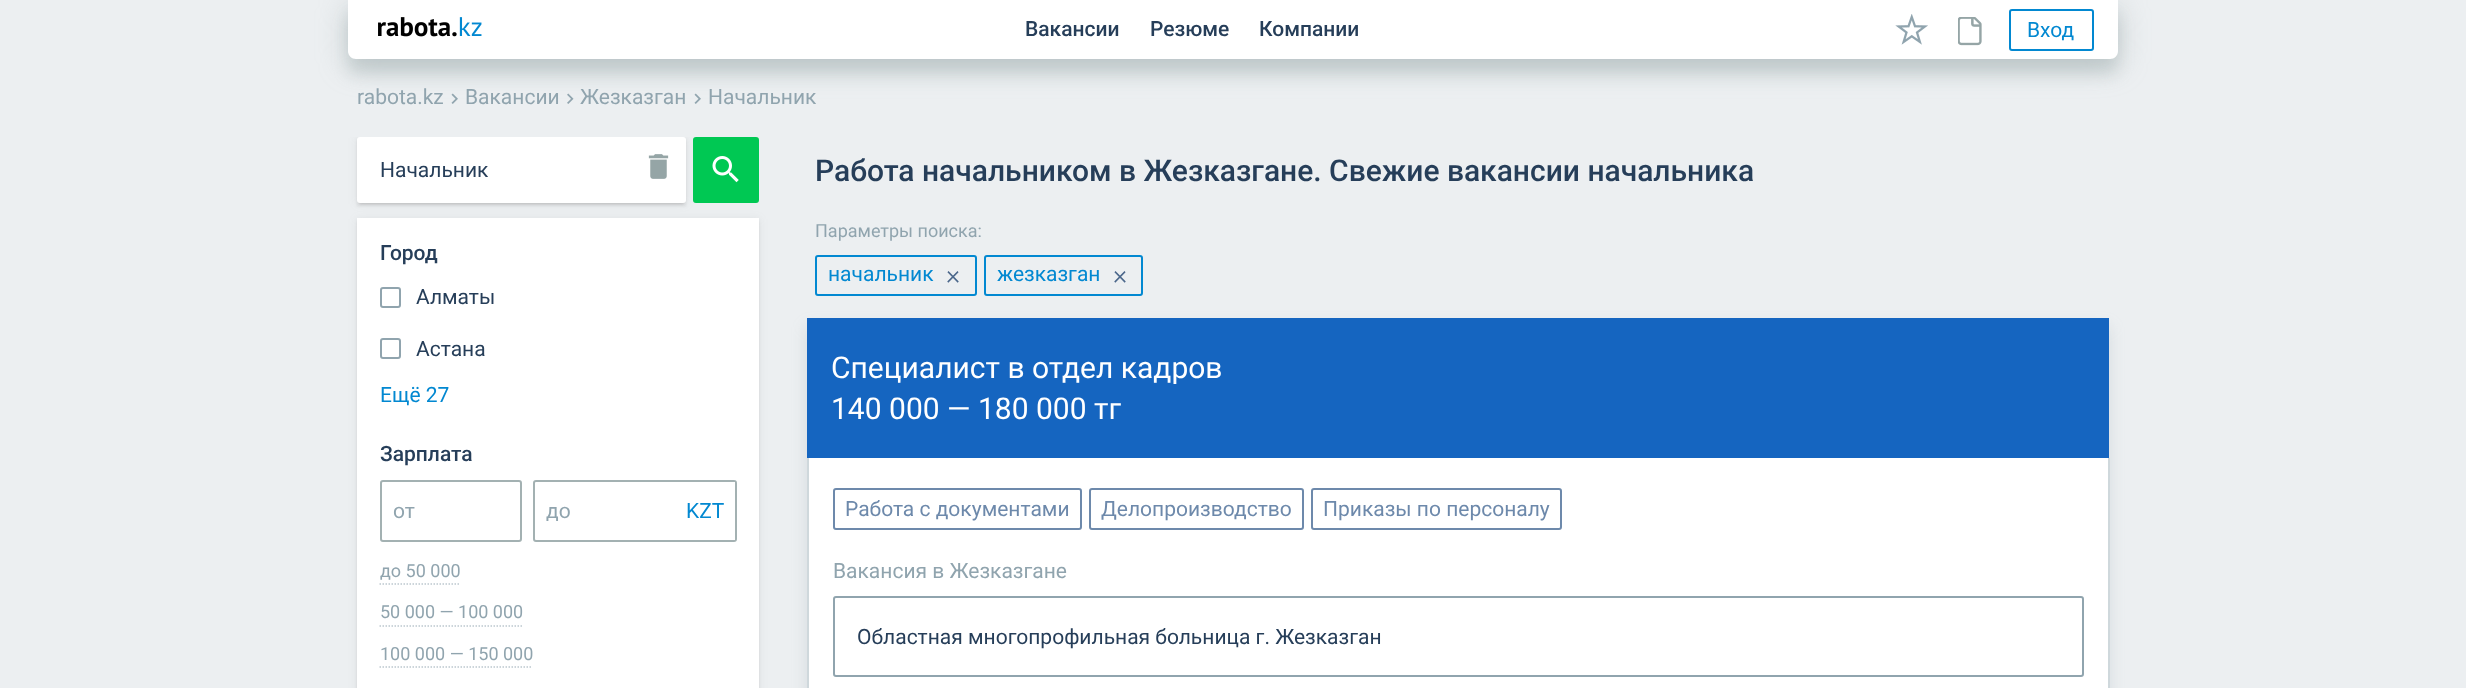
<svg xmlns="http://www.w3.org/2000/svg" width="2466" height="688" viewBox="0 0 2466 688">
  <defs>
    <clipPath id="clip1"><rect x="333" y="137" width="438" height="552"/></clipPath>
    <clipPath id="clip2"><rect x="546" y="500" width="131" height="21"/></clipPath>
  </defs>
  <rect width="100%" height="100%" fill="rgb(236,239,241)"/>
  <image x="451" y="93" width="7" height="11" href="pic4.png"/>
  <image x="567" y="93" width="7" height="11" href="pic5.png"/>
  <image x="694" y="93" width="7" height="11" href="pic4.png"/>
  <rect x="348" y="15" width="1770" height="59" rx="8" fill="rgba(149,165,166,0.29)" filter="blur(7.5px)"/>
  <rect x="348" y="6" width="1770" height="59" rx="8" fill="rgba(149,165,166,0.44)" filter="blur(15px)"/>
  <path d="M348 0H2118V51C2118 55.5 2114.5 59 2110 59H356C351.5 59 348 55.5 348 51Z" fill="rgb(255,255,255)"/>
  <image x="378" y="17" width="104" height="20" href="pic1.png"/>
  <g font-family="Roboto" font-size="21" font-weight="500" fill="rgb(38,62,89)">
    <text x="1025" y="36">Вакансии</text>
    <text x="1150" y="36">Резюме</text>
    <text x="1259" y="36">Компании</text>
  </g>
  <image x="1895" y="14" width="33" height="31" href="pic2.png"/>
  <image x="1958" y="17" width="24" height="29" href="pic3.png"/>
  <rect x="2010" y="10" width="83" height="40" rx="2" fill="none" stroke="rgb(2,136,209)" stroke-width="2"/>
  <text x="2027" y="37" font-family="Roboto" font-size="21" fill="rgb(2,136,209)">Вход</text>
  <g font-family="Roboto" font-size="21" fill="rgb(144,164,174)">
    <text x="357" y="104">rabota.kz</text>
    <text x="465" y="104">Вакансии</text>
    <text x="580" y="104">Жезказган</text>
    <text x="708" y="104">Начальник</text>
  </g>
  <g clip-path="url(#clip1)">
    <rect x="357" y="138" width="329" height="66" fill="rgba(117,117,117,0.12)" filter="blur(4px)"/>
  </g>
  <rect x="360" y="144" width="323" height="60" fill="rgba(117,117,117,0.2)" filter="blur(1px)"/>
  <rect x="357" y="140" width="329" height="66" fill="rgba(117,117,117,0.14)" filter="blur(1.5px)"/>
  <rect x="357" y="137" width="329" height="66" rx="3" fill="rgb(255,255,255)"/>
  <text x="380" y="177" font-family="Roboto" font-size="21" fill="rgb(38,62,89)">Начальник</text>
  <image x="648" y="154" width="21" height="25" href="pic6.png"/>
  <rect x="694" y="138" width="64" height="64" rx="2" fill="rgb(0,200,83)" stroke="rgb(0,200,83)" stroke-width="2"/>
  <image x="712" y="156" width="27" height="27" href="pic7.png"/>
  <rect x="357" y="219" width="402" height="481" fill="rgba(117,117,117,0.12)" filter="blur(4px)"/>
  <rect x="357" y="221" width="402" height="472" fill="rgba(117,117,117,0.14)" filter="blur(1.5px)"/>
  <rect x="357" y="218" width="402" height="470" fill="rgb(255,255,255)"/>
  <text x="380" y="260" font-family="Roboto" font-size="21" font-weight="500" fill="rgb(38,62,89)">Город</text>
  <rect x="381" y="288" width="19" height="19" rx="2" fill="none" stroke="rgb(144,164,174)" stroke-width="2"/>
  <text x="416" y="304" font-family="Roboto" font-size="21" fill="rgb(38,62,89)">Алматы</text>
  <rect x="381" y="339" width="19" height="19" rx="2" fill="none" stroke="rgb(144,164,174)" stroke-width="2"/>
  <text x="416" y="356" font-family="Roboto" font-size="21" fill="rgb(38,62,89)">Астана</text>
  <text x="380" y="402" font-family="Roboto" font-size="21" fill="rgb(2,136,209)">Ещё 27</text>
  <text x="380" y="461" font-family="Roboto" font-size="21" font-weight="500" fill="rgb(38,62,89)">Зарплата</text>
  <rect x="381" y="481" width="140" height="60" rx="2" fill="none" stroke="rgb(163,177,178)" stroke-width="2"/>
  <text x="393" y="518" font-family="Roboto" font-size="21" fill="rgb(144,164,174)">от</text>
  <rect x="534" y="481" width="202" height="60" rx="2" fill="none" stroke="rgb(163,177,178)" stroke-width="2"/>
  <g clip-path="url(#clip2)">
    <text x="546" y="518" font-family="Roboto" font-size="21" fill="rgb(144,164,174)">до</text>
  </g>
  <rect x="734" y="482" width="1" height="58" fill="rgb(255,255,255)"/>
  <text x="686" y="518" font-family="Roboto" font-size="21" fill="rgb(2,136,209)">KZT</text>
  <path d="M379.5 584H460.5" fill="none" stroke="rgb(188,200,206)" stroke-width="1.5" stroke-dasharray="1.5 1.5"/>
  <text x="380" y="577" font-family="Roboto" font-size="18" fill="rgb(144,164,174)">до 50 000</text>
  <path d="M379.5 626H522" fill="none" stroke="rgb(188,200,206)" stroke-width="1.5" stroke-dasharray="1.5 1.5"/>
  <text x="380" y="618" font-family="Roboto" font-size="18" fill="rgb(144,164,174)">50 000 — 100 000</text>
  <path d="M379.5 667H532.5" fill="none" stroke="rgb(188,200,206)" stroke-width="1.5" stroke-dasharray="1.5 1.5"/>
  <text x="380" y="660" font-family="Roboto" font-size="18" fill="rgb(144,164,174)">100 000 — 150 000</text>
  <text x="815" y="181" font-family="Roboto" font-size="30" font-weight="500" fill="rgb(38,62,89)">Работа начальником в Жезказгане. Свежие вакансии начальника</text>
  <text x="815" y="237" font-family="Roboto" font-size="18" fill="rgb(144,164,174)">Параметры поиска:</text>
  <rect x="816" y="256" width="160" height="39" rx="2" fill="none" stroke="rgb(2,136,209)" stroke-width="2"/>
  <text x="828" y="281" font-family="Roboto" font-size="21" fill="rgb(2,136,209)">начальник</text>
  <text x="946" y="284" font-family="Roboto" font-size="27" font-weight="300" fill="rgb(75,103,139)">×</text>
  <rect x="985" y="256" width="157" height="39" rx="2" fill="none" stroke="rgb(2,136,209)" stroke-width="2"/>
  <text x="997" y="281" font-family="Roboto" font-size="21" fill="rgb(2,136,209)">жезказган</text>
  <text x="1113" y="284" font-family="Roboto" font-size="27" font-weight="300" fill="rgb(75,103,139)">×</text>
  <rect x="807" y="327" width="1302" height="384" fill="rgba(142,163,168,0.25)" filter="blur(7.5px)"/>
  <rect x="809" y="458" width="1299" height="230" fill="rgb(255,255,255)"/>
  <rect x="807" y="318" width="1302" height="140" fill="rgb(21,101,192)"/>
  <g font-family="Roboto" font-size="30" fill="rgb(255,255,255)">
    <text>
      <tspan x="831" y="378">Специалист в отдел кадров</tspan>
      <tspan x="831" y="419">140 000 — 180 000 тг</tspan>
    </text>
  </g>
  <rect x="2108" y="458" width="2" height="230" fill="rgb(207,216,220)"/>
  <rect x="807" y="458" width="2" height="230" fill="rgb(207,216,220)"/>
  <rect x="834" y="489" width="247" height="40" rx="2" fill="none" stroke="rgb(109,137,171)" stroke-width="2"/>
  <text x="845" y="516" font-family="Roboto" font-size="21" fill="rgb(109,137,171)">Работа с документами</text>
  <rect x="1090" y="489" width="213" height="40" rx="2" fill="none" stroke="rgb(109,137,171)" stroke-width="2"/>
  <text x="1101" y="516" font-family="Roboto" font-size="21" fill="rgb(109,137,171)">Делопроизводство</text>
  <rect x="1312" y="489" width="249" height="40" rx="2" fill="none" stroke="rgb(109,137,171)" stroke-width="2"/>
  <text x="1323" y="516" font-family="Roboto" font-size="21" fill="rgb(109,137,171)">Приказы по персоналу</text>
  <text x="833" y="578" font-family="Roboto" font-size="21" fill="rgb(144,164,174)">Вакансия в Жезказгане</text>
  <rect x="834" y="597" width="1249" height="79" rx="2" fill="none" stroke="rgb(144,164,174)" stroke-width="2"/>
  <text x="857" y="644" font-family="Roboto" font-size="21" fill="rgb(38,62,89)">Областная многопрофильная больница г. Жезказган</text>
</svg>
